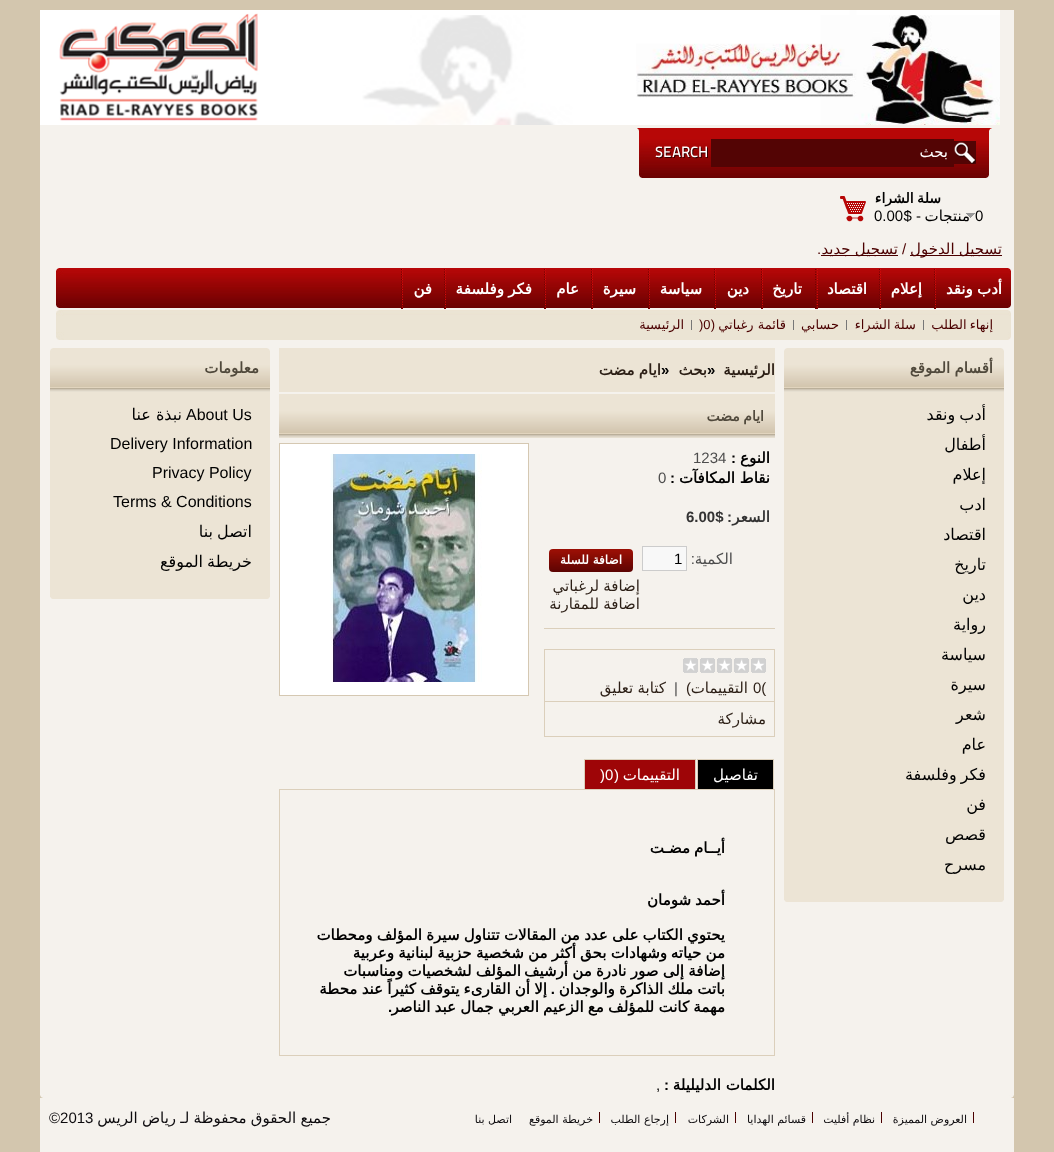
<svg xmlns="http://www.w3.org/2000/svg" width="1054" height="1152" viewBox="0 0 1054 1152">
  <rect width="100%" height="100%" fill="rgb(211,198,174)"/>
  <rect x="40" y="10" width="974" height="1142" fill="rgb(245,242,237)"/>
  <image x="40" y="10" width="960" height="115" href="pic1.png"/>
  <image x="637" y="128" width="355" height="50" href="pic2.png"/>
  <image x="954" y="141" width="22" height="23" href="pic3.png"/>
  <rect x="711" y="139" width="243" height="28" fill="rgb(83,4,4)"/>
  <text x="948" y="157" font-family="DejaVu Sans" font-size="15" direction="rtl" fill="rgb(255,255,255)">بحث</text>
  <image x="840" y="196" width="26" height="26" href="pic4.png"/>
  <text x="941" y="203" word-spacing="-1" font-family="DejaVu Sans" font-size="14" font-weight="bold" direction="rtl" fill="rgb(0,0,0)">سلة الشراء</text>
  <text x="975" y="221" font-family="Liberation Sans" font-size="15" fill="rgb(0,0,0)">0</text>
  <image x="966" y="213" width="9" height="5" href="pic5.png"/>
  <text x="970" y="221" font-family="DejaVu Sans" font-size="15" direction="rtl" fill="rgb(0,0,0)">منتجات</text>
  <text x="921" y="221" font-family="Liberation Sans" font-size="15" direction="rtl" fill="rgb(0,0,0)">- $</text>
  <text x="874" y="221" font-family="Liberation Sans" font-size="15" fill="rgb(0,0,0)">0.00</text>
  <rect x="910" y="255" width="92" height="1" fill="rgb(75,0,0)"/>
  <text x="1002" y="254" word-spacing="-0.5" font-family="DejaVu Sans" font-size="15" direction="rtl" fill="rgb(75,0,0)">تسجيل الدخول</text>
  <text x="902" y="254" font-family="Liberation Sans" font-size="15" fill="rgb(75,0,0)">/</text>
  <rect x="821" y="255" width="77" height="1" fill="rgb(75,0,0)"/>
  <text x="898" y="254" word-spacing="-0.5" font-family="DejaVu Sans" font-size="15" direction="rtl" fill="rgb(75,0,0)">تسجيل جديد</text>
  <text x="817" y="254" font-family="Liberation Sans" font-size="15" fill="rgb(75,0,0)">.</text>
  <image x="56" y="268" width="955" height="72" href="pic6.png"/>
  <text x="993" y="329" word-spacing="-1" font-family="DejaVu Sans" font-size="13" direction="rtl" fill="rgb(75,0,0)">إنهاء الطلب</text>
  <rect x="923" y="320" width="1" height="10" fill="rgb(119,119,119)"/>
  <text x="916" y="329" word-spacing="-1" font-family="DejaVu Sans" font-size="13" direction="rtl" fill="rgb(75,0,0)">سلة الشراء</text>
  <rect x="846" y="320" width="1" height="10" fill="rgb(119,119,119)"/>
  <text x="839" y="329" font-family="DejaVu Sans" font-size="13" direction="rtl" fill="rgb(75,0,0)">حسابي</text>
  <rect x="793" y="320" width="1" height="10" fill="rgb(119,119,119)"/>
  <text x="786" y="329" font-family="DejaVu Sans" font-size="13" direction="rtl" fill="rgb(75,0,0)">قائمة رغباتي</text>
  <text x="715" y="329" font-family="Liberation Sans" font-size="13" direction="rtl" fill="rgb(75,0,0)">(</text>
  <text x="699" y="329" font-family="Liberation Sans" font-size="13" fill="rgb(75,0,0)">)0</text>
  <rect x="691" y="320" width="1" height="10" fill="rgb(119,119,119)"/>
  <text x="684" y="329" font-family="DejaVu Sans" font-size="13" direction="rtl" fill="rgb(75,0,0)">الرئيسية</text>
  <image x="934" y="269" width="2" height="40" href="pic7.png"/>
  <text x="1002" y="294" word-spacing="-0.5" font-family="DejaVu Sans" font-size="15" font-weight="bold" direction="rtl" fill="rgb(255,255,255)">أدب ونقد</text>
  <image x="879" y="269" width="2" height="40" href="pic7.png"/>
  <text x="922" y="294" font-family="DejaVu Sans" font-size="15" font-weight="bold" direction="rtl" fill="rgb(255,255,255)">إعلام</text>
  <image x="815" y="269" width="3" height="40" href="pic8.png"/>
  <text x="867" y="294" font-family="DejaVu Sans" font-size="15" font-weight="bold" direction="rtl" fill="rgb(255,255,255)">اقتصاد</text>
  <image x="761" y="269" width="2" height="40" href="pic7.png"/>
  <text x="802" y="294" font-family="DejaVu Sans" font-size="15" font-weight="bold" direction="rtl" fill="rgb(255,255,255)">تاريخ</text>
  <image x="714" y="269" width="2" height="40" href="pic7.png"/>
  <text x="749" y="294" font-family="DejaVu Sans" font-size="15" font-weight="bold" direction="rtl" fill="rgb(255,255,255)">دين</text>
  <image x="648" y="269" width="2" height="40" href="pic7.png"/>
  <text x="702" y="294" font-family="DejaVu Sans" font-size="15" font-weight="bold" direction="rtl" fill="rgb(255,255,255)">سياسة</text>
  <image x="591" y="269" width="2" height="40" href="pic7.png"/>
  <text x="636" y="294" font-family="DejaVu Sans" font-size="15" font-weight="bold" direction="rtl" fill="rgb(255,255,255)">سيرة</text>
  <image x="544" y="269" width="2" height="40" href="pic7.png"/>
  <text x="579" y="294" font-family="DejaVu Sans" font-size="15" font-weight="bold" direction="rtl" fill="rgb(255,255,255)">عام</text>
  <image x="444" y="269" width="2" height="40" href="pic7.png"/>
  <text x="532" y="294" word-spacing="-0.5" font-family="DejaVu Sans" font-size="15" font-weight="bold" direction="rtl" fill="rgb(255,255,255)">فكر وفلسفة</text>
  <image x="401" y="269" width="2" height="40" href="pic7.png"/>
  <text x="432" y="294" font-family="DejaVu Sans" font-size="15" font-weight="bold" direction="rtl" fill="rgb(255,255,255)">فن</text>
  <rect x="784" y="392" width="220" height="508" fill="rgb(236,228,213)"/>
  <image x="784" y="900" width="220" height="2" href="pic9.png"/>
  <image x="784" y="348" width="220" height="44" href="pic10.png"/>
  <text x="993" y="373" word-spacing="-0.5" font-family="DejaVu Sans" font-size="15" font-weight="bold" direction="rtl" fill="rgb(80,73,60)">أقسام الموقع</text>
  <g font-family="DejaVu Sans" font-size="16" direction="rtl" fill="rgb(0,0,0)">
    <text>
      <tspan x="986" y="420" word-spacing="-1">أدب ونقد</tspan>
      <tspan x="986" y="450">أطفال</tspan>
      <tspan x="986" y="480">إعلام</tspan>
      <tspan x="986" y="510">ادب</tspan>
      <tspan x="986" y="540">اقتصاد</tspan>
      <tspan x="986" y="570">تاريخ</tspan>
      <tspan x="986" y="600">دين</tspan>
      <tspan x="986" y="630">رواية</tspan>
      <tspan x="986" y="660">سياسة</tspan>
      <tspan x="986" y="690">سيرة</tspan>
      <tspan x="986" y="720">شعر</tspan>
      <tspan x="986" y="750">عام</tspan>
      <tspan x="986" y="780" word-spacing="-1">فكر وفلسفة</tspan>
      <tspan x="986" y="810">فن</tspan>
      <tspan x="986" y="840">قصص</tspan>
      <tspan x="986" y="870">مسرح</tspan>
    </text>
  </g>
  <rect x="279" y="348" width="496" height="44" fill="rgb(236,228,213)"/>
  <text x="775" y="375" font-family="DejaVu Sans" font-size="15" font-weight="bold" direction="rtl" fill="rgb(44,31,22)">الرئيسية</text>
  <text x="707" y="375" font-family="Liberation Sans" font-size="15" font-weight="bold" fill="rgb(0,0,0)">»</text>
  <text x="707" y="375" font-family="DejaVu Sans" font-size="15" font-weight="bold" direction="rtl" fill="rgb(44,31,22)">بحث</text>
  <text x="661" y="375" font-family="Liberation Sans" font-size="15" font-weight="bold" fill="rgb(0,0,0)">»</text>
  <text x="661" y="375" word-spacing="-0.5" font-family="DejaVu Sans" font-size="15" font-weight="bold" direction="rtl" fill="rgb(44,31,22)">ايام مضت</text>
  <image x="279" y="394" width="496" height="44" href="pic11.png"/>
  <text x="764" y="421" word-spacing="-1" font-family="DejaVu Sans" font-size="14" font-weight="bold" direction="rtl" fill="rgb(80,73,60)">ايام مضت</text>
  <text x="770" y="463" font-family="DejaVu Sans" font-size="15" font-weight="bold" direction="rtl" fill="rgb(0,0,0)">النوع</text>
  <text x="736" y="463" font-family="Liberation Sans" font-size="15" font-weight="bold" direction="rtl" fill="rgb(0,0,0)">:</text>
  <text x="693" y="463" font-family="Liberation Sans" font-size="15" fill="rgb(77,77,77)">1234</text>
  <text x="770" y="483" font-family="DejaVu Sans" font-size="15" font-weight="bold" direction="rtl" fill="rgb(0,0,0)">نقاط المكافآت</text>
  <text x="675" y="483" font-family="Liberation Sans" font-size="15" font-weight="bold" direction="rtl" fill="rgb(0,0,0)">:</text>
  <text x="658" y="483" font-family="Liberation Sans" font-size="15" fill="rgb(77,77,77)">0</text>
  <text x="770" y="522" font-family="DejaVu Sans" font-size="15" font-weight="bold" direction="rtl" fill="rgb(51,51,51)">السعر</text>
  <text x="732" y="522" font-family="Liberation Sans" font-size="15" font-weight="bold" direction="rtl" fill="rgb(51,51,51)">:</text>
  <text x="686" y="522" font-family="Liberation Sans" font-size="15" font-weight="bold" fill="rgb(51,51,51)">6.00$</text>
  <rect x="544" y="628" width="231" height="1" fill="rgb(219,207,187)"/>
  <text x="733" y="564" font-family="DejaVu Sans" font-size="15" direction="rtl" fill="rgb(77,77,77)">الكمية</text>
  <text x="695" y="564" font-family="Liberation Sans" font-size="15" direction="rtl" fill="rgb(77,77,77)">:</text>
  <rect x="642.5" y="546.5" width="44" height="24" fill="rgb(248,248,248)" stroke="rgb(204,204,204)"/>
  <text x="674" y="564" font-family="Liberation Sans" font-size="15" fill="rgb(0,0,0)">1</text>
  <image x="549" y="549" width="84" height="23" href="pic12.png"/>
  <text x="622" y="564" font-family="DejaVu Sans" font-size="12" font-weight="bold" direction="rtl" fill="rgb(255,255,255)">اضافة للسلة</text>
  <g font-family="DejaVu Sans" font-size="15" direction="rtl" fill="rgb(44,31,22)">
    <text>
      <tspan x="640" y="591" word-spacing="-0.5">إضافة لرغباتي</tspan>
      <tspan x="640" y="609" word-spacing="-0.5">اضافة للمقارنة</tspan>
    </text>
  </g>
  <rect x="544" y="649" width="231" height="1" fill="rgb(219,207,187)"/>
  <rect x="774" y="649" width="1" height="88" fill="rgb(219,207,187)"/>
  <rect x="544" y="649" width="1" height="88" fill="rgb(219,207,187)"/>
  <rect x="545" y="701" width="229" height="1" fill="rgb(219,207,187)"/>
  <image x="683" y="658" width="83" height="15" href="pic13.png"/>
  <text x="753" y="693" font-family="Liberation Sans" font-size="15" fill="rgb(44,31,22)">0(</text>
  <text x="748" y="693" font-family="DejaVu Sans" font-size="15" direction="rtl" fill="rgb(44,31,22)">التقييمات</text>
  <text x="691" y="693" font-family="Liberation Sans" font-size="15" direction="rtl" fill="rgb(44,31,22)">)</text>
  <text x="674" y="693" font-family="Liberation Sans" font-size="15" fill="rgb(77,77,77)">|</text>
  <text x="666" y="693" word-spacing="-0.5" font-family="DejaVu Sans" font-size="15" direction="rtl" fill="rgb(44,31,22)">كتابة تعليق</text>
  <rect x="545" y="736" width="229" height="1" fill="rgb(219,207,187)"/>
  <text x="766" y="724" font-family="DejaVu Sans" font-size="15" direction="rtl" fill="rgb(44,31,22)">مشاركة</text>
  <rect x="279.5" y="443.5" width="249" height="252" fill="rgb(255,255,255)" stroke="rgb(213,200,178)"/>
  <image x="330" y="454" width="152" height="228" href="pic14.png"/>
  <rect x="279" y="789" width="496" height="1" fill="rgb(219,207,187)"/>
  <rect x="698" y="760" width="75" height="29" fill="rgb(0,0,0)"/>
  <rect x="697" y="759" width="77" height="1" fill="rgb(219,207,187)"/>
  <rect x="773" y="759" width="1" height="30" fill="rgb(219,207,187)"/>
  <rect x="697" y="759" width="1" height="30" fill="rgb(219,207,187)"/>
  <text x="758" y="780" font-family="DejaVu Sans" font-size="15" direction="rtl" fill="rgb(255,255,255)">تفاصيل</text>
  <rect x="585" y="760" width="110" height="29" fill="rgb(158,5,7)"/>
  <rect x="584" y="759" width="112" height="1" fill="rgb(219,207,187)"/>
  <rect x="695" y="759" width="1" height="30" fill="rgb(219,207,187)"/>
  <rect x="584" y="759" width="1" height="30" fill="rgb(219,207,187)"/>
  <text x="680" y="780" font-family="DejaVu Sans" font-size="15" direction="rtl" fill="rgb(255,255,255)">التقييمات</text>
  <text x="619" y="780" font-family="Liberation Sans" font-size="15" direction="rtl" fill="rgb(255,255,255)">(</text>
  <text x="600" y="780" font-family="Liberation Sans" font-size="15" fill="rgb(255,255,255)">)0</text>
  <rect x="774" y="790" width="1" height="266" fill="rgb(219,207,187)"/>
  <rect x="279" y="1055" width="496" height="1" fill="rgb(219,207,187)"/>
  <rect x="279" y="790" width="1" height="266" fill="rgb(219,207,187)"/>
  <g font-family="DejaVu Sans" font-size="15" font-weight="bold" direction="rtl" fill="rgb(0,0,0)">
    <text x="725" y="853">أيــام</text>
    <text x="690" y="853">مضـت</text>
    <text x="725" y="905">أحمد</text>
    <text x="691" y="905">شومان</text>
    <text>
      <tspan x="725" y="940" word-spacing="-0.5">يحتوي الكتاب على عدد من المقالات تتناول سيرة المؤلف ومحطات</tspan>
      <tspan x="725" y="958" word-spacing="-0.5">من حياته</tspan>
    </text>
    <text x="667" y="958" word-spacing="-0.5">وشهادات بحق أكثر من شخصية حزبية لبنانية وعربية</text>
    <text x="725" y="976" word-spacing="-0.5">إضافة إلى صور نادرة من أرشيف</text>
    <text x="521" y="976" word-spacing="-0.5">المؤلف لشخصيات ومناسبات</text>
    <text x="725" y="994" word-spacing="-0.5">باتت ملك الذاكرة والوجدان</text>
  </g>
  <text x="555" y="994" font-family="Liberation Sans" font-size="15" font-weight="bold" direction="rtl" fill="rgb(0,0,0)">.</text>
  <g font-family="DejaVu Sans" font-size="15" font-weight="bold" direction="rtl" fill="rgb(0,0,0)">
    <text x="547" y="994" word-spacing="-0.5">إلا أن القارىء يتوقف كثيراً</text>
    <text x="383" y="994" word-spacing="-0.5">عند محطة</text>
    <text x="725" y="1012" word-spacing="-0.5">مهمة كانت للمؤلف مع الزعيم العربي جمال عبد الناصر</text>
  </g>
  <text x="388" y="1012" font-family="Liberation Sans" font-size="15" font-weight="bold" fill="rgb(0,0,0)">.</text>
  <text x="775" y="1090" font-family="DejaVu Sans" font-size="15" font-weight="bold" direction="rtl" fill="rgb(0,0,0)">الكلمات الدليليلة</text>
  <text x="669" y="1090" font-family="Liberation Sans" font-size="15" font-weight="bold" direction="rtl" fill="rgb(0,0,0)">:</text>
  <text x="656" y="1090" font-family="Liberation Sans" font-size="15" fill="rgb(0,0,0)">,</text>
  <rect x="50" y="392" width="220" height="205" fill="rgb(236,228,213)"/>
  <image x="50" y="597" width="220" height="2" href="pic9.png"/>
  <image x="50" y="348" width="220" height="44" href="pic10.png"/>
  <text x="259" y="373" font-family="DejaVu Sans" font-size="15" font-weight="bold" direction="rtl" fill="rgb(80,73,60)">معلومات</text>
  <text x="186" y="420" font-family="Liberation Sans" font-size="16" fill="rgb(0,0,0)">About Us</text>
  <text x="182" y="420" font-family="DejaVu Sans" font-size="16" direction="rtl" fill="rgb(0,0,0)">نبذة عنا</text>
  <g font-family="Liberation Sans" font-size="16" fill="rgb(0,0,0)">
    <text x="110" y="449">Delivery Information</text>
    <text x="152" y="478">Privacy Policy</text>
    <text x="113" y="507">Terms &amp; Conditions</text>
  </g>
  <g font-family="DejaVu Sans" font-size="16" direction="rtl" fill="rgb(0,0,0)">
    <text>
      <tspan x="252" y="537" word-spacing="-1">اتصل بنا</tspan>
      <tspan x="252" y="567" word-spacing="-1">خريطة الموقع</tspan>
    </text>
  </g>
  <image x="40" y="1095" width="974" height="3" href="pic15.png"/>
  <text x="967" y="1123" font-family="DejaVu Sans" font-size="11" direction="rtl" fill="rgb(12,10,13)">العروض المميزة</text>
  <rect x="973" y="1112" width="1" height="11" fill="rgb(75,0,0)"/>
  <text x="875" y="1123" font-family="DejaVu Sans" font-size="11" direction="rtl" fill="rgb(12,10,13)">نظام أفليت</text>
  <rect x="881" y="1112" width="1" height="11" fill="rgb(75,0,0)"/>
  <text x="806" y="1123" font-family="DejaVu Sans" font-size="11" direction="rtl" fill="rgb(12,10,13)">قسائم الهدايا</text>
  <rect x="812" y="1112" width="1" height="11" fill="rgb(75,0,0)"/>
  <text x="729" y="1123" font-family="DejaVu Sans" font-size="11" direction="rtl" fill="rgb(12,10,13)">الشركات</text>
  <rect x="735" y="1112" width="1" height="11" fill="rgb(75,0,0)"/>
  <text x="669" y="1123" font-family="DejaVu Sans" font-size="11" direction="rtl" fill="rgb(12,10,13)">إرجاع الطلب</text>
  <rect x="675" y="1112" width="1" height="11" fill="rgb(75,0,0)"/>
  <text x="593" y="1123" font-family="DejaVu Sans" font-size="11" direction="rtl" fill="rgb(12,10,13)">خريطة الموقع</text>
  <rect x="599" y="1112" width="1" height="11" fill="rgb(75,0,0)"/>
  <text x="512" y="1123" font-family="DejaVu Sans" font-size="11" direction="rtl" fill="rgb(12,10,13)">اتصل بنا</text>
  <text x="331" y="1123" word-spacing="-0.5" font-family="DejaVu Sans" font-size="15" direction="rtl" fill="rgb(12,10,13)">جميع الحقوق محفوظة لـ رياض الريس</text>
  <text x="49" y="1123" font-family="Liberation Sans" font-size="15" fill="rgb(12,10,13)">©2013</text>
</svg>
